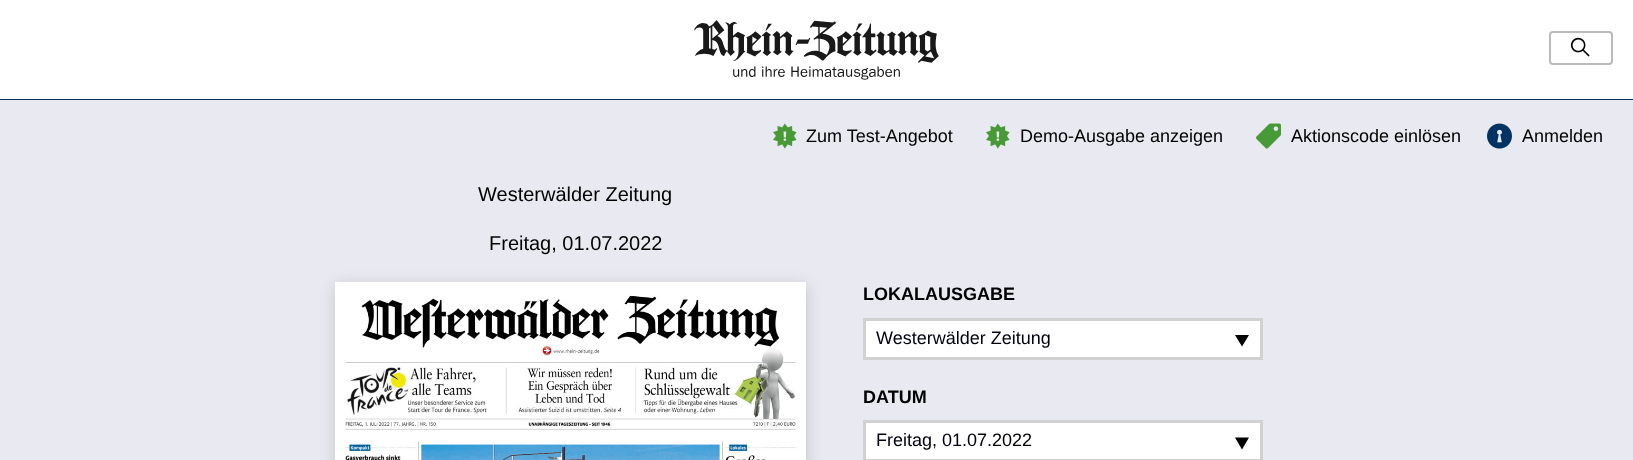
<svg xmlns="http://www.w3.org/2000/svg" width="1633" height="460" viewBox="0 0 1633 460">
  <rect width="100%" height="100%" fill="rgb(233,233,241)"/>
  <rect x="0" y="0" width="1633" height="99" fill="rgb(255,255,255)"/>
  <rect x="0" y="99" width="1633" height="1" fill="rgb(0,43,85)"/>
  <image x="694" y="20" width="245" height="60" href="pic1.png"/>
  <rect x="1550" y="32" width="62" height="32" rx="3" fill="none" stroke="rgb(186,186,186)" stroke-width="2"/>
  <image x="1570" y="37" width="20" height="20" href="pic2.png"/>
  <image x="773" y="123" width="24" height="26" href="pic3.png"/>
  <text x="806" y="142" font-family="Liberation Sans" font-size="18" fill="rgb(0,0,0)">Zum Test-Angebot</text>
  <image x="986" y="123" width="24" height="26" href="pic3.png"/>
  <text x="1020" y="142" font-family="Liberation Sans" font-size="18" fill="rgb(0,0,0)">Demo-Ausgabe anzeigen</text>
  <image x="1256" y="123" width="25" height="26" href="pic4.png"/>
  <text x="1291" y="142" font-family="Liberation Sans" font-size="18" fill="rgb(0,0,0)">Aktionscode einlösen</text>
  <image x="1487" y="123" width="25" height="26" href="pic5.png"/>
  <text x="1522" y="142" font-family="Liberation Sans" font-size="18" fill="rgb(0,0,0)">Anmelden</text>
  <g font-family="Liberation Sans" font-size="20" fill="rgb(0,0,0)">
    <text x="478" y="201">Westerwälder Zeitung</text>
    <text x="489" y="250">Freitag, 01.07.2022</text>
  </g>
  <rect x="335" y="285" width="472" height="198" fill="rgba(0,0,0,0.15)" filter="blur(7.5px)"/>
  <image x="335" y="282" width="471" height="178" href="pic6.png"/>
  <text x="863" y="300" font-family="Liberation Sans" font-size="18" font-weight="bold" fill="rgb(0,0,0)">LOKALAUSGABE</text>
  <rect x="864.5" y="319.5" width="397" height="39" fill="rgb(255,255,255)" stroke="rgb(209,209,209)" stroke-width="3"/>
  <text x="876" y="344" font-family="Liberation Sans" font-size="18" fill="rgb(0,0,15)">Westerwälder Zeitung</text>
  <path d="M1235 335H1249L1242 346.5Z" fill="rgb(0,0,0)"/>
  <text x="863" y="403" font-family="Liberation Sans" font-size="18" font-weight="bold" fill="rgb(0,0,0)">DATUM</text>
  <rect x="864.5" y="421.5" width="397" height="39" fill="rgb(255,255,255)" stroke="rgb(209,209,209)" stroke-width="3"/>
  <text x="876" y="446" font-family="Liberation Sans" font-size="18" fill="rgb(0,0,15)">Freitag, 01.07.2022</text>
  <path d="M1235 437.5H1249L1242 449.5Z" fill="rgb(0,0,0)"/>
</svg>
